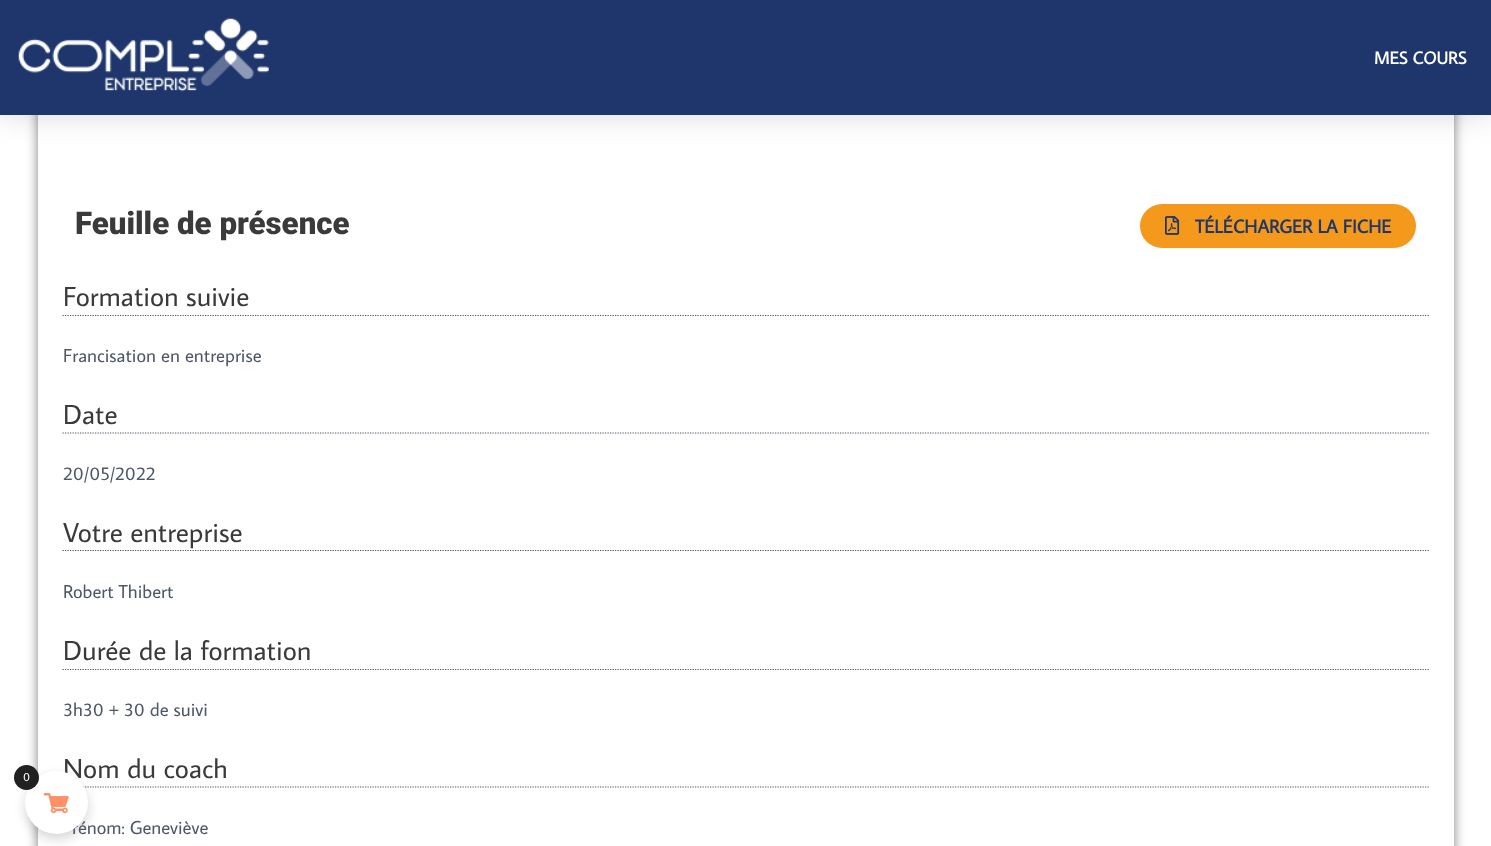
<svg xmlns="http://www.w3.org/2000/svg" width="1491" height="846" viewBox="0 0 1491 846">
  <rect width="100%" height="100%" fill="rgb(255,255,255)"/>
  <rect x="38" y="54" width="1416" height="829" rx="19" fill="rgba(0,0,0,0.5)" filter="blur(6px)"/>
  <rect x="38" y="115" width="1416" height="731" fill="rgb(255,255,255)"/>
  <path d="M62.5 787H1429" fill="none" stroke="rgb(78,87,104)" stroke-width="1.2" stroke-dasharray="1.25 1.25"/>
  <rect x="25" y="776" width="63" height="63" rx="31.5" fill="rgba(0,0,0,0.17)" filter="blur(6px)"/>
  <text x="63" y="778" font-family="Average Sans" font-size="27.5" fill="rgb(58,58,58)">Nom du coach</text>
  <text x="72" y="834" font-family="Average Sans" font-size="18.75" fill="rgb(78,87,104)">rénom: Geneviève</text>
  <circle cx="56.5" cy="802.5" r="31.5" fill="rgb(255,255,255)"/>
  <circle cx="26.5" cy="777.5" r="12.5" fill="rgb(33,33,33)"/>
  <text x="23" y="781" font-family="Average Sans" font-size="12" fill="rgb(255,255,255)">0</text>
  <image x="43" y="793" width="26" height="21" href="pic1.png"/>
  <rect x="0" y="0" width="1491" height="115" fill="rgba(0,0,0,0.15)" filter="blur(15px)"/>
  <rect x="0" y="0" width="1491" height="115" fill="rgb(30,54,108)"/>
  <image x="18" y="18" width="251" height="74" href="pic2.png"/>
  <text x="1374" y="64" font-family="Average Sans" font-size="17.5" font-weight="bold" fill="rgb(255,255,255)">MES COURS</text>
  <text x="75" y="234" font-family="Roboto" font-size="31.25" font-weight="900" fill="rgb(58,58,58)">Feuille de présence</text>
  <rect x="1140" y="204" width="276" height="44" rx="22" fill="rgb(244,153,28)"/>
  <image x="1165" y="216" width="15" height="19" href="pic3.png"/>
  <text x="1195" y="233" font-family="Average Sans" font-size="18.75" font-weight="bold" fill="rgb(30,54,108)">TÉLÉCHARGER LA FICHE</text>
  <path d="M62.5 315.5H1429" fill="none" stroke="rgb(78,87,104)" stroke-width="1.2" stroke-dasharray="1.25 1.25"/>
  <text x="63" y="306" font-family="Average Sans" font-size="27.5" fill="rgb(58,58,58)">Formation suivie</text>
  <text x="63" y="362" font-family="Average Sans" font-size="18.75" fill="rgb(78,87,104)">Francisation en entreprise</text>
  <path d="M62.5 433H1429" fill="none" stroke="rgb(78,87,104)" stroke-width="1.2" stroke-dasharray="1.25 1.25"/>
  <text x="63" y="424" font-family="Average Sans" font-size="27.5" fill="rgb(58,58,58)">Date</text>
  <text x="63" y="480" font-family="Average Sans" font-size="18.75" fill="rgb(78,87,104)">20/05/2022</text>
  <path d="M62.5 550.5H1429" fill="none" stroke="rgb(78,87,104)" stroke-width="1.2" stroke-dasharray="1.25 1.25"/>
  <text x="63" y="542" font-family="Average Sans" font-size="27.5" fill="rgb(58,58,58)">Votre entreprise</text>
  <text x="63" y="598" font-family="Average Sans" font-size="18.75" fill="rgb(78,87,104)">Robert Thibert</text>
  <path d="M62.5 669.5H1429" fill="none" stroke="rgb(78,87,104)" stroke-width="1.2" stroke-dasharray="1.25 1.25"/>
  <text x="63" y="660" font-family="Average Sans" font-size="27.5" fill="rgb(58,58,58)">Durée de la formation</text>
  <text x="63" y="716" font-family="Average Sans" font-size="18.75" fill="rgb(78,87,104)">3h30 + 30 de suivi</text>
</svg>
